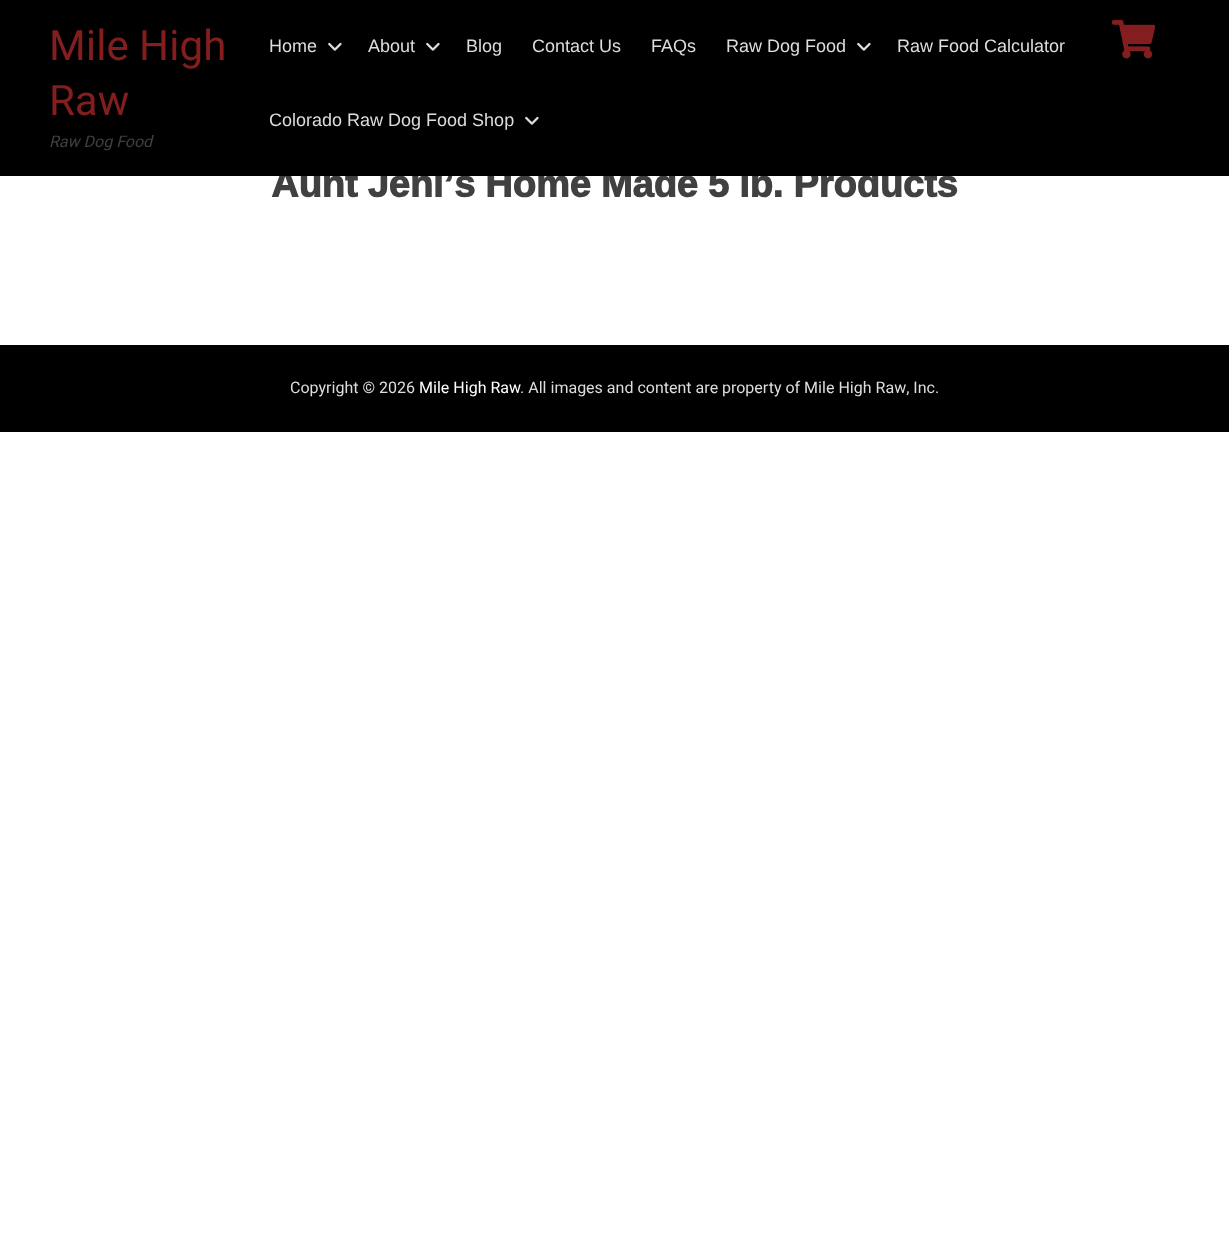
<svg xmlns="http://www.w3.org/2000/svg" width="1229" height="1239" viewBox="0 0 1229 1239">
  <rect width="100%" height="100%" fill="rgb(255,255,255)"/>
  <text x="271" y="197" font-family="Ramabhadra" font-size="38" font-weight="bold" fill="rgb(64,64,64)">Aunt Jeni’s Home Made 5 lb. Products</text>
  <rect x="0" y="0" width="1229" height="176" fill="rgb(0,0,0)"/>
  <g font-family="Heebo" font-size="42" fill="rgb(132,30,30)">
    <text>
      <tspan x="49" y="60">Mile High</tspan>
      <tspan x="49" y="115">Raw</tspan>
    </text>
  </g>
  <text x="49" y="147" font-family="Heebo" font-size="16" font-style="italic" fill="rgb(64,64,64)">Raw Dog Food</text>
  <text x="269" y="52" font-family="Liberation Sans" font-size="18" fill="rgb(221,221,221)">Home</text>
  <image x="328" y="42" width="14" height="9" href="pic1.png"/>
  <text x="368" y="52" font-family="Liberation Sans" font-size="18" fill="rgb(221,221,221)">About</text>
  <image x="426" y="42" width="14" height="9" href="pic1.png"/>
  <g font-family="Liberation Sans" font-size="18" fill="rgb(221,221,221)">
    <text x="466" y="52">Blog</text>
    <text x="532" y="52">Contact Us</text>
    <text x="651" y="52">FAQs</text>
    <text x="726" y="52">Raw Dog Food</text>
  </g>
  <image x="857" y="42" width="14" height="9" href="pic1.png"/>
  <g font-family="Liberation Sans" font-size="18" fill="rgb(221,221,221)">
    <text x="897" y="52">Raw Food Calculator</text>
    <text x="269" y="126">Colorado Raw Dog Food Shop</text>
  </g>
  <image x="525" y="116" width="14" height="9" href="pic1.png"/>
  <image x="1112" y="20" width="44" height="39" href="pic2.png"/>
  <rect x="0" y="345" width="1229" height="87" fill="rgb(0,0,0)"/>
  <text x="290" y="393" font-family="Heebo" font-size="16" fill="rgb(221,221,221)">Copyright © 2026</text>
  <text x="419" y="393" font-family="Heebo" font-size="16" fill="rgb(255,255,255)">Mile High Raw</text>
  <text x="520" y="393" font-family="Heebo" font-size="16" fill="rgb(221,221,221)">. All images and content are property of Mile High Raw, Inc.</text>
</svg>
